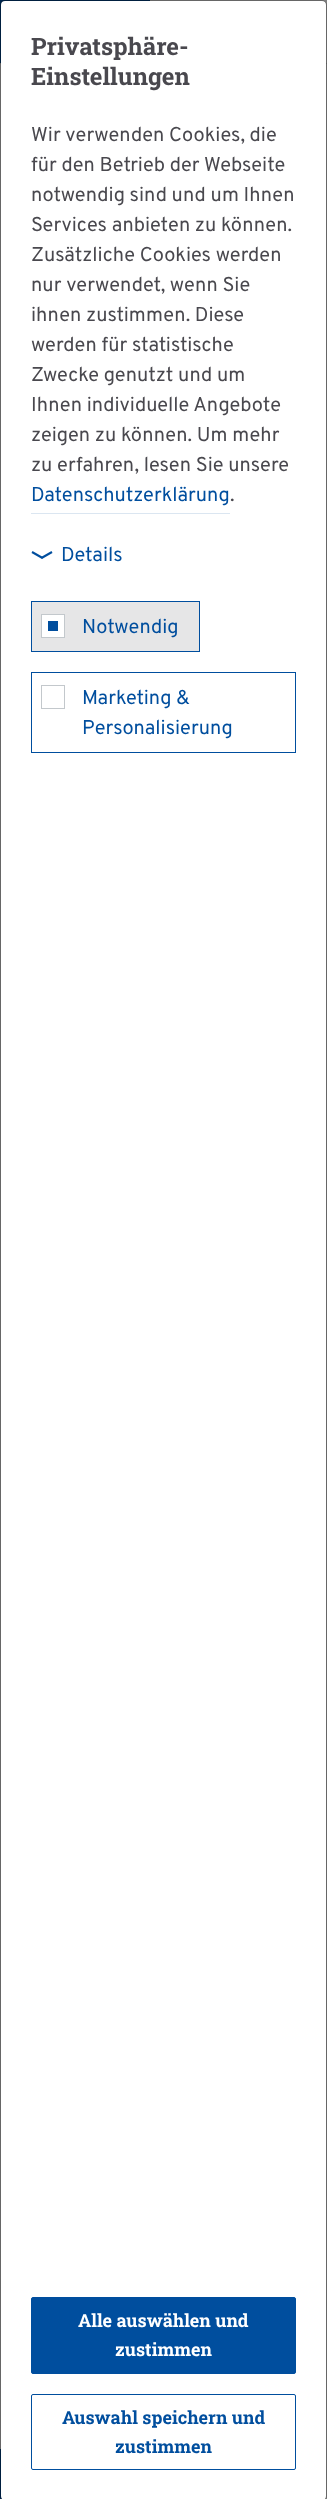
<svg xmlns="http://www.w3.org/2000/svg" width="327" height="2499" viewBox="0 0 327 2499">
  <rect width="100%" height="100%" fill="rgb(128,128,128)"/>
  <rect x="0" y="0" width="150" height="63" fill="rgb(0,39,79)"/>
  <rect x="0" y="63" width="327" height="1" fill="rgb(113,113,113)"/>
  <rect x="0" y="2449" width="3" height="50" fill="rgb(0,39,79)"/>
  <rect x="1" y="1" width="325" height="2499" rx="4" fill="rgb(255,255,255)"/>
  <rect x="0.5" y="0.5" width="326" height="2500" rx="4.5" fill="none" stroke="rgba(0,0,0,0.2)"/>
  <g font-family="Roboto Slab" font-size="24" font-weight="bold" fill="rgb(73,72,78)">
    <text>
      <tspan x="31" y="55">Privatsphäre-</tspan>
      <tspan x="31" y="85">Einstellungen</tspan>
    </text>
  </g>
  <g font-family="Overpass" font-size="20" fill="rgb(73,72,78)">
    <text>
      <tspan x="31" y="141">Wir verwenden Cookies, die</tspan>
      <tspan x="31" y="171">für den Betrieb der Webseite</tspan>
      <tspan x="31" y="201">notwendig sind und um Ihnen</tspan>
      <tspan x="31" y="231">Services anbieten zu können.</tspan>
      <tspan x="31" y="261">Zusätzliche Cookies werden</tspan>
      <tspan x="31" y="291">nur verwendet, wenn Sie</tspan>
      <tspan x="31" y="321">ihnen zustimmen. Diese</tspan>
      <tspan x="31" y="351">werden für statistische</tspan>
      <tspan x="31" y="381">Zwecke genutzt und um</tspan>
      <tspan x="31" y="411">Ihnen individuelle Angebote</tspan>
      <tspan x="31" y="441">zeigen zu können. Um mehr</tspan>
      <tspan x="31" y="471">zu erfahren, lesen Sie unsere</tspan>
    </text>
  </g>
  <text x="31" y="501" font-family="Overpass" font-size="20" fill="rgb(0,78,158)">Datenschutzerklärung</text>
  <rect x="31" y="513" width="199" height="1" fill="rgb(219,230,241)"/>
  <text x="230" y="501" font-family="Overpass" font-size="20" fill="rgb(73,72,78)">.</text>
  <path d="M32.5 551L43 557L42 559L31.5 553Z" fill="rgb(0,78,158)"/>
  <path d="M41 557L51.5 551L52.5 553L42 559Z" fill="rgb(0,78,158)"/>
  <text x="61" y="561" font-family="Overpass" font-size="20" fill="rgb(0,78,158)">Details</text>
  <rect x="31.5" y="601.5" width="168" height="50" fill="rgb(230,230,231)" stroke="rgb(0,78,158)"/>
  <rect x="41.5" y="614.5" width="23" height="23" fill="rgb(255,255,255)" stroke="rgb(195,200,204)"/>
  <text x="82" y="633" font-family="Overpass" font-size="20" fill="rgb(0,78,158)">Notwendig</text>
  <rect x="48" y="621" width="10" height="10" fill="rgb(0,78,158)"/>
  <rect x="31.5" y="672.5" width="264" height="80" fill="none" stroke="rgb(0,78,158)"/>
  <rect x="41.5" y="685.5" width="23" height="23" fill="none" stroke="rgb(195,200,204)"/>
  <g font-family="Overpass" font-size="20" fill="rgb(0,78,158)">
    <text>
      <tspan x="82" y="704">Marketing &amp;</tspan>
      <tspan x="82" y="734">Personalisierung</tspan>
    </text>
  </g>
  <rect x="31.5" y="2297.5" width="264" height="76" rx="1.5" fill="rgb(0,78,158)" stroke="rgb(0,78,158)"/>
  <g font-family="Roboto Slab" font-size="18" font-weight="bold" fill="rgb(255,255,255)">
    <text x="78" y="2327">Alle auswählen und</text>
    <text x="115" y="2356">zustimmen</text>
  </g>
  <rect x="31.5" y="2394.5" width="264" height="75" rx="1.5" fill="none" stroke="rgb(0,78,158)"/>
  <g font-family="Roboto Slab" font-size="18" font-weight="bold" fill="rgb(0,78,158)">
    <text x="62" y="2424">Auswahl speichern und</text>
    <text x="115" y="2453">zustimmen</text>
  </g>
</svg>
